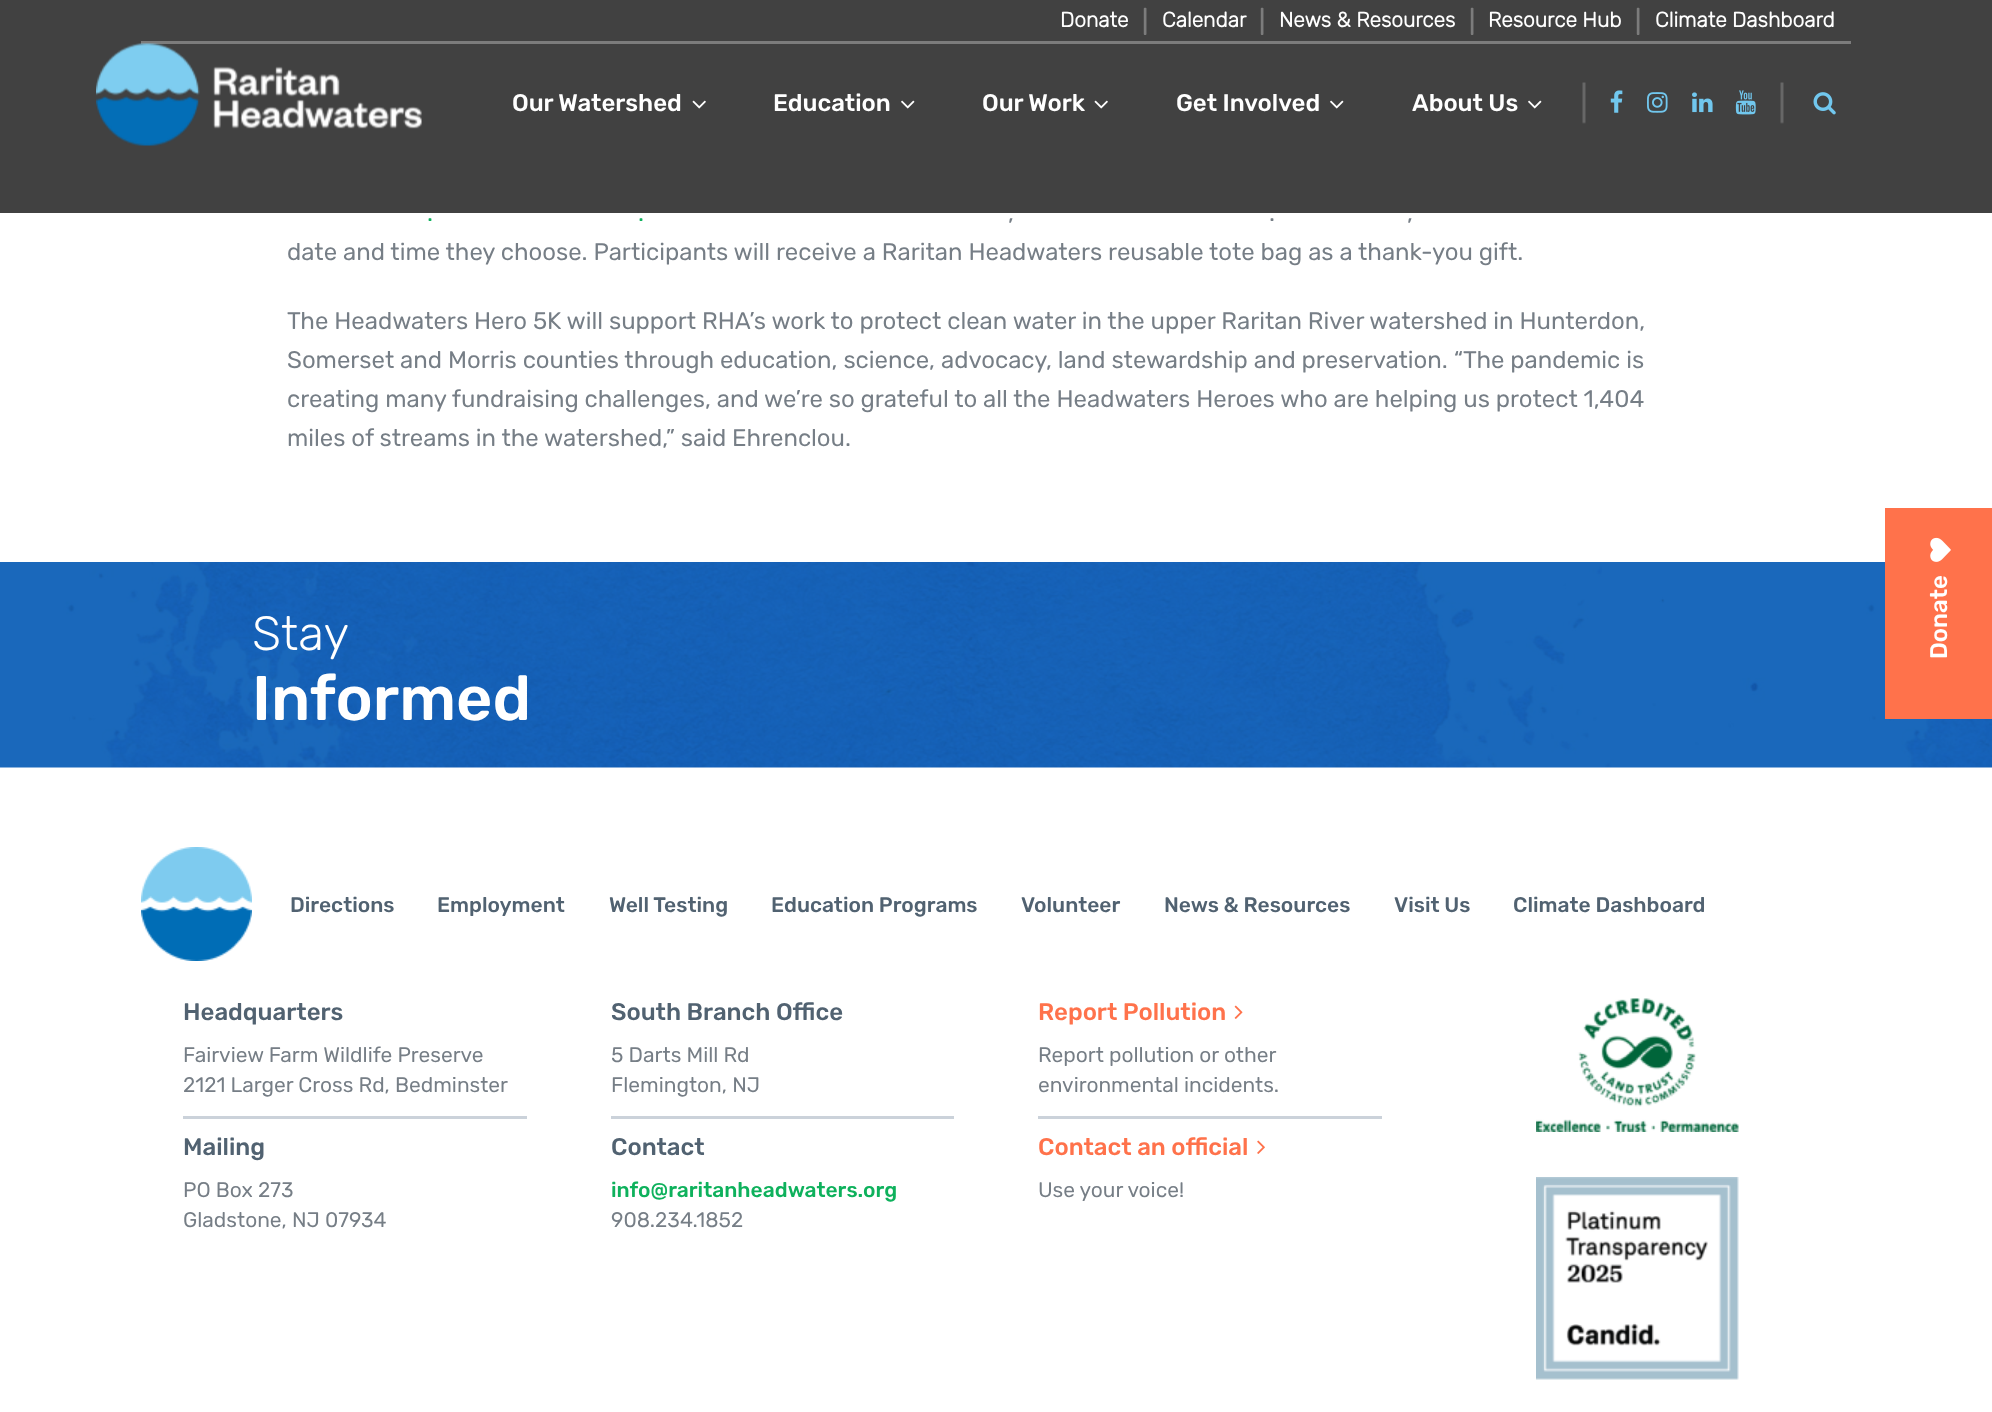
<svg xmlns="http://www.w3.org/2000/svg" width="1992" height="1412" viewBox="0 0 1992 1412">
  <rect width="100%" height="100%" fill="rgb(255,255,255)"/>
  <rect x="0" y="0" width="1992" height="213" fill="rgba(17,17,17,0.8)"/>
  <rect x="141" y="41" width="1710" height="3" fill="rgb(124,124,124)"/>
  <text x="1060" y="27" font-family="Rubik" font-size="21" font-weight="bold" fill="rgb(255,255,255)">Donate</text>
  <text x="1142" y="30" font-family="'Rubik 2'" font-size="24" font-weight="bold" fill="rgb(124,124,124)">|</text>
  <text x="1162" y="27" font-family="Rubik" font-size="21" font-weight="bold" fill="rgb(255,255,255)">Calendar</text>
  <text x="1259" y="30" font-family="'Rubik 2'" font-size="24" font-weight="bold" fill="rgb(124,124,124)">|</text>
  <text x="1279" y="27" font-family="Rubik" font-size="21" font-weight="bold" fill="rgb(255,255,255)">News &amp; Resources</text>
  <text x="1469" y="30" font-family="'Rubik 2'" font-size="24" font-weight="bold" fill="rgb(124,124,124)">|</text>
  <text x="1488" y="27" font-family="Rubik" font-size="21" font-weight="bold" fill="rgb(255,255,255)">Resource Hub</text>
  <text x="1635" y="30" font-family="'Rubik 2'" font-size="24" font-weight="bold" fill="rgb(124,124,124)">|</text>
  <text x="1655" y="27" font-family="Rubik" font-size="21" font-weight="bold" fill="rgb(255,255,255)">Climate Dashboard</text>
  <image x="96" y="43" width="326" height="103" href="pic1.png"/>
  <text x="512" y="111" font-family="Rubik" font-size="24" font-weight="500" fill="rgb(255,255,255)">Our Watershed</text>
  <image x="692" y="100" width="14" height="9" href="pic2.png"/>
  <text x="773" y="111" font-family="Rubik" font-size="24" font-weight="500" fill="rgb(255,255,255)">Education</text>
  <image x="901" y="100" width="14" height="9" href="pic3.png"/>
  <text x="982" y="111" font-family="Rubik" font-size="24" font-weight="500" fill="rgb(255,255,255)">Our Work</text>
  <image x="1094" y="100" width="14" height="9" href="pic2.png"/>
  <text x="1176" y="111" font-family="Rubik" font-size="24" font-weight="500" fill="rgb(255,255,255)">Get Involved</text>
  <image x="1330" y="100" width="14" height="9" href="pic3.png"/>
  <text x="1412" y="111" font-family="Rubik" font-size="24" font-weight="500" fill="rgb(255,255,255)">About Us</text>
  <image x="1528" y="100" width="14" height="9" href="pic3.png"/>
  <image x="1582" y="82" width="4" height="42" href="pic4.png"/>
  <image x="1610" y="90" width="13" height="23" href="pic5.png"/>
  <image x="1647" y="92" width="21" height="21" href="pic6.png"/>
  <image x="1692" y="92" width="21" height="21" href="pic7.png"/>
  <image x="1735" y="90" width="21" height="25" href="pic8.png"/>
  <image x="1780" y="82" width="4" height="42" href="pic4.png"/>
  <image x="1813" y="92" width="23" height="23" href="pic9.png"/>
  <g font-family="Rubik" font-size="24" fill="rgb(14,177,92)">
    <text x="427" y="221">.</text>
    <text x="638" y="221">.</text>
  </g>
  <g font-family="Rubik" font-size="24" fill="rgb(118,126,134)">
    <text x="1008" y="221">,</text>
    <text x="1269" y="221">.</text>
    <text x="1407" y="221">,</text>
    <text x="287" y="260">date and time they choose. Participants will receive a Raritan Headwaters reusable tote bag as a thank-you gift.</text>
    <text>
      <tspan x="287" y="329">The Headwaters Hero 5K will support RHA’s work to protect clean water in the upper Raritan River watershed in Hunterdon,</tspan>
      <tspan x="287" y="368">Somerset and Morris counties through education, science, advocacy, land stewardship and preservation. “The pandemic is</tspan>
      <tspan x="287" y="407">creating many fundraising challenges, and we’re so grateful to all the Headwaters Heroes who are helping us protect 1,404</tspan>
      <tspan x="287" y="446">miles of streams in the watershed,” said Ehrenclou.</tspan>
    </text>
  </g>
  <image x="0" y="562" width="1992" height="206" href="pic10.png"/>
  <text x="252" y="650" font-family="Rubik" font-size="48" font-weight="300" fill="rgb(255,255,255)">Stay</text>
  <text x="252" y="720" font-family="Rubik" font-size="63" font-weight="500" fill="rgb(255,255,255)">Informed</text>
  <image x="141" y="847" width="111" height="114" href="pic11.png"/>
  <g font-family="Rubik" font-size="21" font-weight="500" fill="rgb(81,98,113)">
    <text x="290" y="912">Directions</text>
    <text x="437" y="912">Employment</text>
    <text x="609" y="912">Well Testing</text>
    <text x="771" y="912">Education Programs</text>
    <text x="1021" y="912">Volunteer</text>
    <text x="1164" y="912">News &amp; Resources</text>
    <text x="1394" y="912">Visit Us</text>
    <text x="1513" y="912">Climate Dashboard</text>
  </g>
  <text x="183" y="1020" font-family="Rubik" font-size="24" font-weight="500" fill="rgb(81,98,113)">Headquarters</text>
  <g font-family="Rubik" font-size="21" fill="rgb(118,126,134)">
    <text>
      <tspan x="183" y="1062">Fairview Farm Wildlife Preserve</tspan>
      <tspan x="183" y="1092">2121 Larger Cross Rd, Bedminster</tspan>
    </text>
  </g>
  <rect x="183" y="1116" width="344" height="3" fill="rgb(203,210,218)"/>
  <text x="183" y="1155" font-family="Rubik" font-size="24" font-weight="500" fill="rgb(81,98,113)">Mailing</text>
  <g font-family="Rubik" font-size="21" fill="rgb(118,126,134)">
    <text>
      <tspan x="183" y="1197">PO Box 273</tspan>
      <tspan x="183" y="1227">Gladstone, NJ 07934</tspan>
    </text>
  </g>
  <text x="611" y="1020" font-family="Rubik" font-size="24" font-weight="500" fill="rgb(81,98,113)">South Branch Office</text>
  <g font-family="Rubik" font-size="21" fill="rgb(118,126,134)">
    <text>
      <tspan x="611" y="1062">5 Darts Mill Rd</tspan>
      <tspan x="611" y="1092">Flemington, NJ</tspan>
    </text>
  </g>
  <rect x="611" y="1116" width="343" height="3" fill="rgb(203,210,218)"/>
  <text x="611" y="1155" font-family="Rubik" font-size="24" font-weight="500" fill="rgb(81,98,113)">Contact</text>
  <text x="611" y="1197" font-family="Rubik" font-size="21" font-weight="500" fill="rgb(14,177,92)">info@raritanheadwaters.org</text>
  <text x="611" y="1227" font-family="Rubik" font-size="21" fill="rgb(118,126,134)">908.234.1852</text>
  <text x="1038" y="1020" font-family="Rubik" font-size="24" font-weight="500" fill="rgb(255,114,75)">Report Pollution</text>
  <image x="1234" y="1005" width="9" height="14" href="pic12.png"/>
  <g font-family="Rubik" font-size="21" fill="rgb(118,126,134)">
    <text>
      <tspan x="1038" y="1062">Report pollution or other</tspan>
      <tspan x="1038" y="1092">environmental incidents.</tspan>
    </text>
  </g>
  <rect x="1038" y="1116" width="344" height="3" fill="rgb(203,210,218)"/>
  <text x="1038" y="1155" font-family="Rubik" font-size="24" font-weight="500" fill="rgb(255,114,75)">Contact an official</text>
  <image x="1257" y="1140" width="8" height="14" href="pic13.png"/>
  <text x="1038" y="1197" font-family="Rubik" font-size="21" fill="rgb(118,126,134)">Use your voice!</text>
  <image x="1536" y="998" width="203" height="134" href="pic14.png"/>
  <image x="1536" y="1177" width="203" height="203" href="pic15.png"/>
  <rect x="1885" y="508" width="107" height="211" fill="rgb(255,114,75)"/>
  <image x="1930" y="537" width="21" height="25" href="pic16.png"/>
  <text x="1947" y="659" transform="rotate(-90 1947 659)" font-family="Rubik" font-size="24" font-weight="500" fill="rgb(255,255,255)">Donate</text>
</svg>
